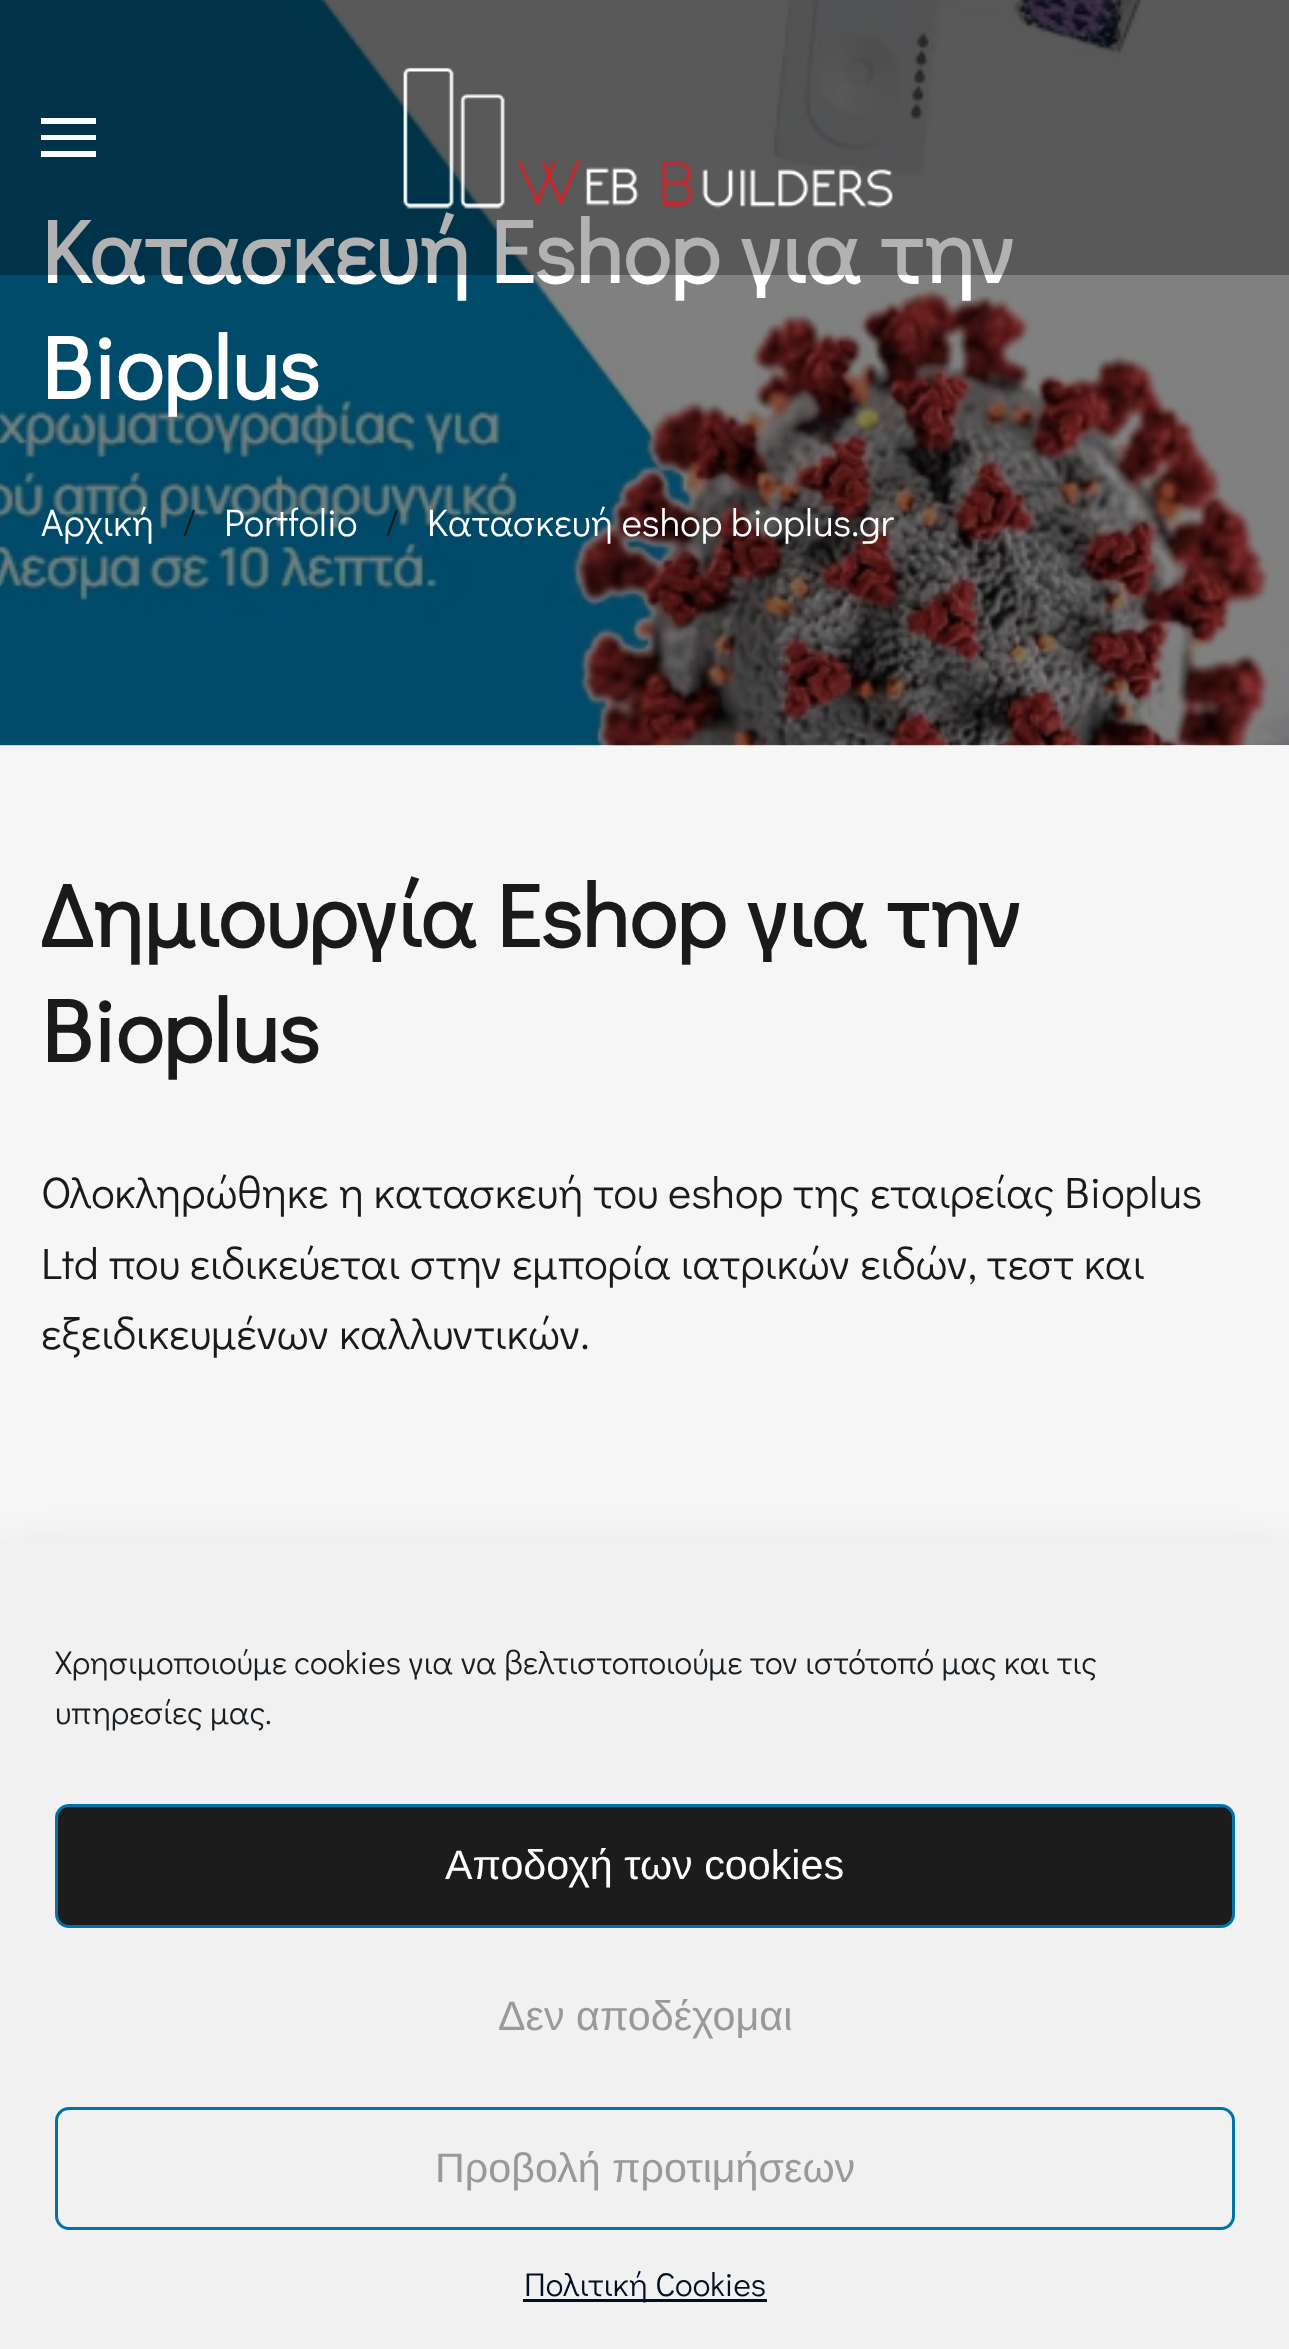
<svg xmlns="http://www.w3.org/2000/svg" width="1289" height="2349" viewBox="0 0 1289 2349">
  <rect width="100%" height="100%" fill="rgb(246,246,246)"/>
  <image x="0" y="0" width="1289" height="746" href="pic2.png"/>
  <text x="41" y="283" font-family="Didact Gothic" font-size="88.75" font-weight="bold" fill="rgb(255,255,255)">Κατασκευή Eshop για την</text>
  <rect x="0" y="0" width="1289" height="275" fill="rgba(0,0,0,0.3)"/>
  <rect x="41" y="118" width="55" height="6" fill="rgb(255,255,255)"/>
  <rect x="41" y="135" width="55" height="5" fill="rgb(255,255,255)"/>
  <rect x="41" y="151" width="55" height="6" fill="rgb(255,255,255)"/>
  <image x="403" y="67" width="490" height="142" href="pic1.png"/>
  <text x="41" y="399" font-family="Didact Gothic" font-size="88.75" font-weight="bold" fill="rgb(255,255,255)">Bioplus</text>
  <text x="41" y="536" font-family="Didact Gothic" font-size="38.5" fill="rgb(255,255,255)">Αρχική</text>
  <text x="182" y="536" font-family="Didact Gothic" font-size="38.5" fill="rgb(26,26,26)">/</text>
  <text x="224" y="536" font-family="Didact Gothic" font-size="38.5" fill="rgb(255,255,255)">Portfolio</text>
  <text x="385" y="536" font-family="Didact Gothic" font-size="38.5" fill="rgb(26,26,26)">/</text>
  <text x="427" y="536" font-family="Didact Gothic" font-size="38.5" fill="rgb(255,255,255)">Κατασκευή eshop bioplus.gr</text>
  <g font-family="Didact Gothic" font-size="88.75" font-weight="bold" fill="rgb(26,26,26)">
    <text>
      <tspan x="41" y="947">Δημιουργία Eshop για την</tspan>
      <tspan x="41" y="1062">Bioplus</tspan>
    </text>
  </g>
  <g font-family="Didact Gothic" font-size="44" fill="rgb(26,26,26)">
    <text>
      <tspan x="41" y="1208">Ολοκληρώθηκε η κατασκευή του eshop της εταιρείας Bioplus</tspan>
      <tspan x="41" y="1279">Ltd που ειδικεύεται στην εμπορία ιατρικών ειδών, τεστ και</tspan>
      <tspan x="41" y="1349">εξειδικευμένων καλλυντικών.</tspan>
    </text>
  </g>
  <rect x="0" y="1568" width="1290" height="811" fill="rgba(0,0,0,0.19)" filter="blur(27.5px)"/>
  <rect x="0" y="1541" width="1289" height="808" fill="rgb(241,241,241)"/>
  <g font-family="Didact Gothic" font-size="33" fill="rgb(25,30,35)">
    <text>
      <tspan x="55" y="1674">Χρησιμοποιούμε cookies για να βελτιστοποιούμε τον ιστότοπό μας και τις</tspan>
      <tspan x="55" y="1724">υπηρεσίες μας.</tspan>
    </text>
  </g>
  <rect x="56.5" y="1805.5" width="1177" height="121" rx="12.5" fill="rgb(28,28,28)" stroke="rgb(0,115,170)" stroke-width="3"/>
  <text x="445" y="1879" font-family="Liberation Sans" font-size="41.25" fill="rgb(255,255,255)">Αποδοχή των cookies</text>
  <text x="498" y="2030" font-family="Liberation Sans" font-size="41.25" fill="rgb(153,153,153)">Δεν αποδέχομαι</text>
  <rect x="56.5" y="2108.5" width="1177" height="120" rx="12.5" fill="none" stroke="rgb(0,115,170)" stroke-width="3"/>
  <text x="435" y="2182" font-family="Liberation Sans" font-size="41.25" fill="rgb(153,153,153)">Προβολή προτιμήσεων</text>
  <rect x="523" y="2299" width="244" height="3" fill="rgb(0,16,35)"/>
  <text x="524" y="2296" font-family="Didact Gothic" font-size="33" fill="rgb(0,16,35)">Πολιτική Cookies</text>
</svg>
